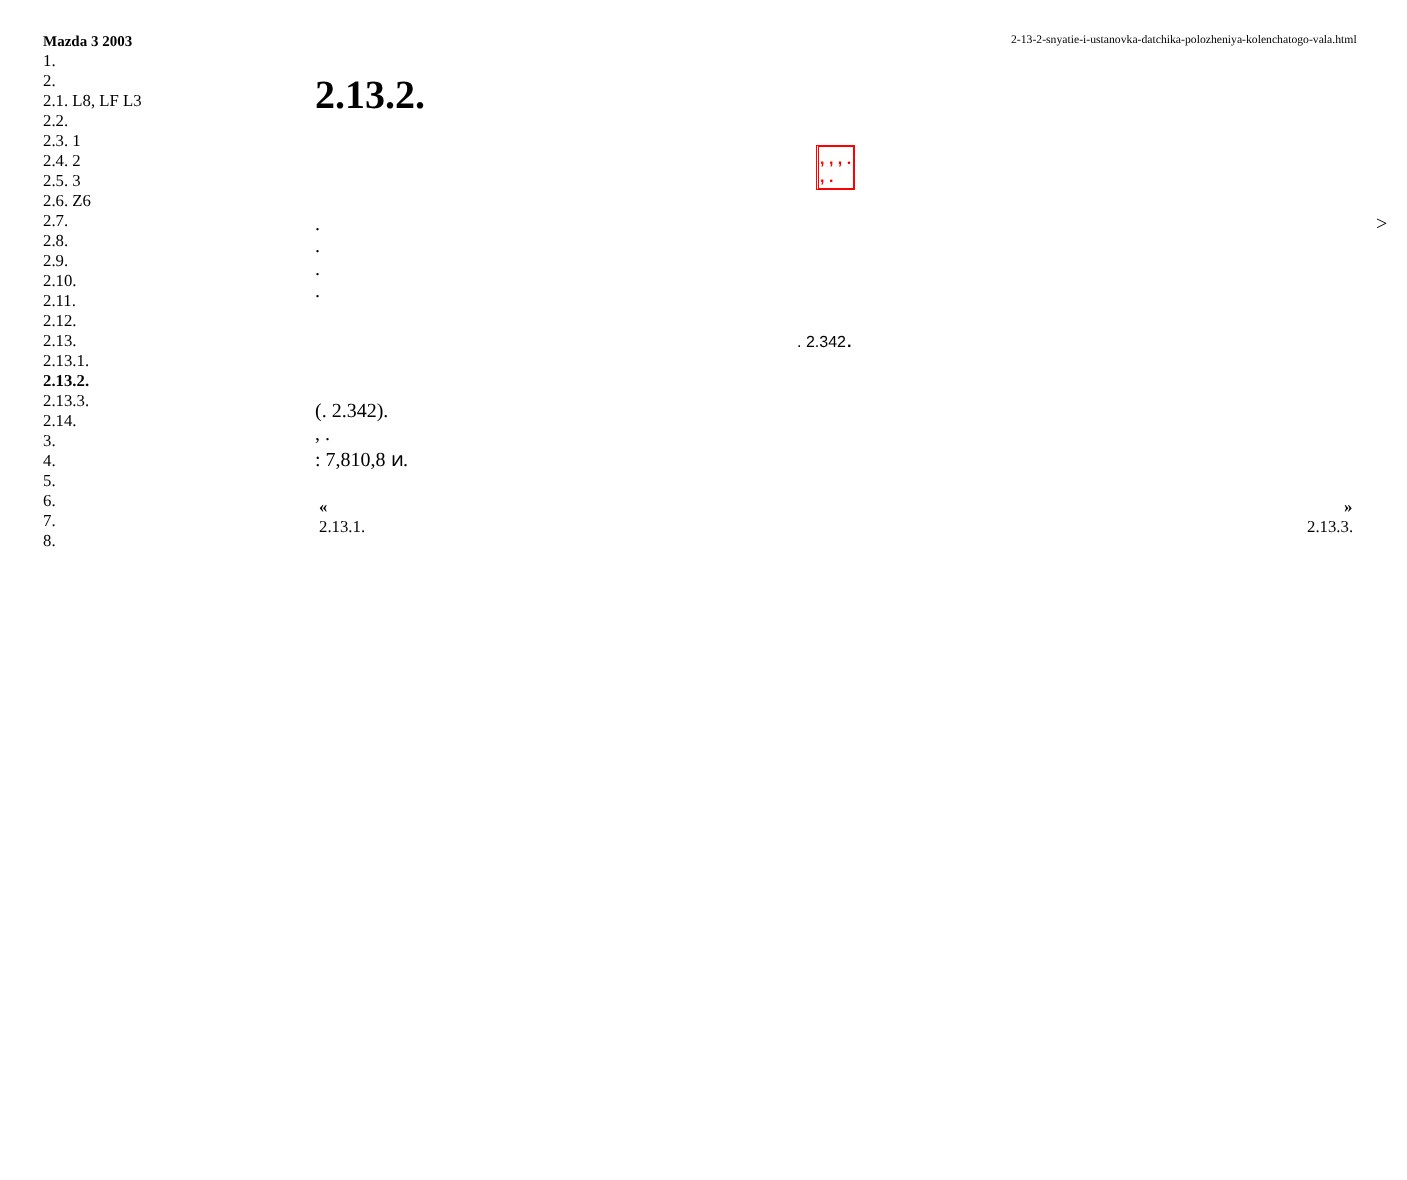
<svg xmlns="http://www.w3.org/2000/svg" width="1407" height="1180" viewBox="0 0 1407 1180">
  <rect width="100%" height="100%" fill="rgb(255,255,255)"/>
  <text x="43" y="46" font-family="Liberation Serif" font-size="15" font-weight="bold" fill="rgb(0,0,0)">Mazda 3 2003</text>
  <g font-family="Liberation Serif" font-size="16.75" fill="rgb(0,0,0)">
    <text>
      <tspan x="43" y="66">1.</tspan>
      <tspan x="43" y="86">2.</tspan>
      <tspan x="43" y="106">2.1. L8, LF L3</tspan>
      <tspan x="43" y="126">2.2.</tspan>
      <tspan x="43" y="146">2.3. 1</tspan>
      <tspan x="43" y="166">2.4. 2</tspan>
      <tspan x="43" y="186">2.5. 3</tspan>
      <tspan x="43" y="206">2.6. Z6</tspan>
      <tspan x="43" y="226">2.7.</tspan>
      <tspan x="43" y="246">2.8.</tspan>
      <tspan x="43" y="266">2.9.</tspan>
      <tspan x="43" y="286">2.10.</tspan>
      <tspan x="43" y="306">2.11.</tspan>
      <tspan x="43" y="326">2.12.</tspan>
      <tspan x="43" y="346">2.13.</tspan>
      <tspan x="43" y="366">2.13.1.</tspan>
    </text>
  </g>
  <text x="43" y="386" font-family="Liberation Serif" font-size="16.75" font-weight="bold" fill="rgb(0,0,0)">2.13.2.</text>
  <g font-family="Liberation Serif" font-size="16.75" fill="rgb(0,0,0)">
    <text>
      <tspan x="43" y="406">2.13.3.</tspan>
      <tspan x="43" y="426">2.14.</tspan>
      <tspan x="43" y="446">3.</tspan>
      <tspan x="43" y="466">4.</tspan>
      <tspan x="43" y="486">5.</tspan>
      <tspan x="43" y="506">6.</tspan>
      <tspan x="43" y="526">7.</tspan>
      <tspan x="43" y="546">8.</tspan>
    </text>
  </g>
  <text x="1011" y="43" font-family="Liberation Serif" font-size="11.7" fill="rgb(0,0,0)">2-13-2-snyatie-i-ustanovka-datchika-polozheniya-kolenchatogo-vala.html</text>
  <text x="315" y="108" font-family="Liberation Serif" font-size="40" font-weight="bold" fill="rgb(0,0,0)">2.13.2.</text>
  <rect x="816.5" y="145.5" width="38" height="44" fill="none" stroke="rgb(255,0,0)"/>
  <rect x="818.5" y="146.5" width="35" height="42" fill="none" stroke="rgb(255,0,0)"/>
  <g font-family="Liberation Sans" font-size="16" font-weight="bold" fill="rgb(255,0,0)">
    <text>
      <tspan x="820" y="164">, , , .</tspan>
      <tspan x="820" y="182">, .</tspan>
    </text>
  </g>
  <g font-family="Liberation Serif" font-size="20" fill="rgb(0,0,0)">
    <text>
      <tspan x="315" y="230">.</tspan>
      <tspan x="315" y="252">.</tspan>
      <tspan x="315" y="275">.</tspan>
      <tspan x="315" y="297">.</tspan>
    </text>
  </g>
  <text x="797" y="347" font-family="Liberation Sans" font-size="16" fill="rgb(0,0,0)">. 2.342</text>
  <text x="847" y="347" font-family="Liberation Sans" font-size="16" font-weight="bold" fill="rgb(0,0,0)">.</text>
  <g font-family="Liberation Serif" font-size="20" fill="rgb(0,0,0)">
    <text>
      <tspan x="315" y="417">(. 2.342).</tspan>
      <tspan x="315" y="440">, .</tspan>
      <tspan x="315" y="466">: 7,810,8</tspan>
    </text>
  </g>
  <text x="391" y="466" font-family="Noto Sans" font-size="20" fill="rgb(0,0,0)">ͷ</text>
  <text x="403" y="466" font-family="Liberation Serif" font-size="20" fill="rgb(0,0,0)">.</text>
  <text x="319" y="512" font-family="Liberation Serif" font-size="16.75" font-weight="bold" fill="rgb(0,0,0)">«</text>
  <text x="319" y="532" font-family="Liberation Serif" font-size="16.75" fill="rgb(0,0,0)">2.13.1.</text>
  <text x="1344" y="512" font-family="Liberation Serif" font-size="16.75" font-weight="bold" fill="rgb(0,0,0)">»</text>
  <text x="1307" y="532" font-family="Liberation Serif" font-size="16.75" fill="rgb(0,0,0)">2.13.3.</text>
  <text x="1376" y="230" font-family="Liberation Serif" font-size="20" fill="rgb(0,0,0)">&gt;</text>
</svg>
